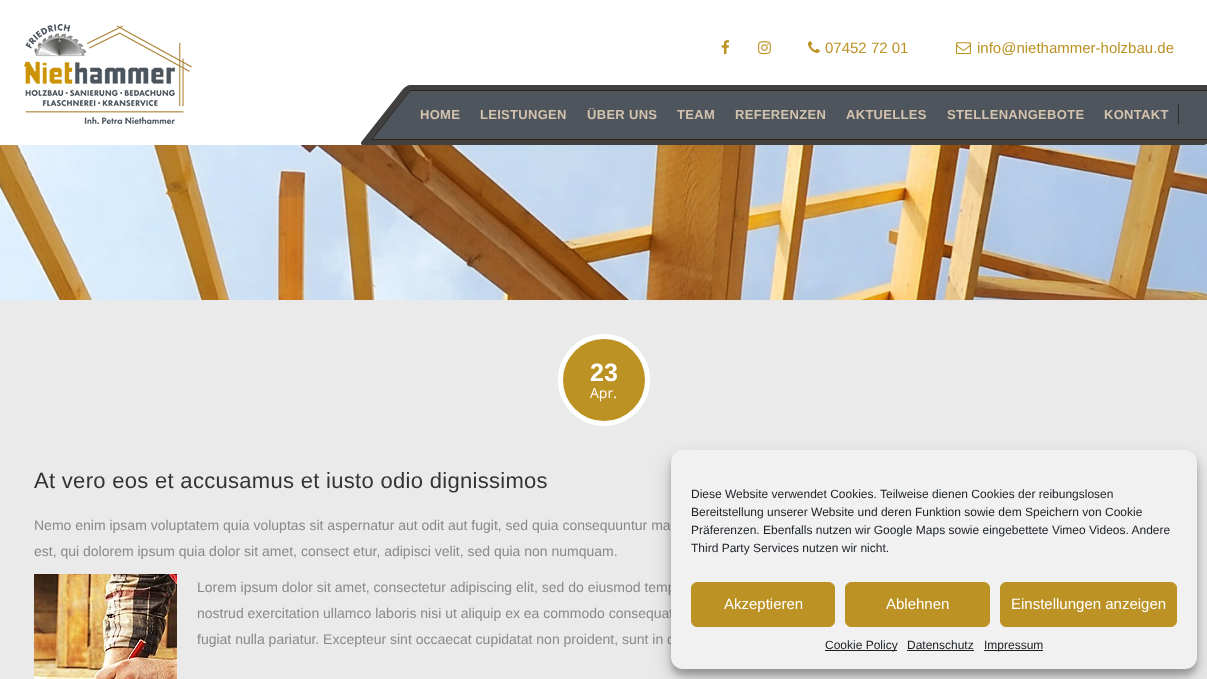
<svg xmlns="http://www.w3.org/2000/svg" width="1207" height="679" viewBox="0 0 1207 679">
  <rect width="100%" height="100%" fill="rgb(234,234,234)"/>
  <rect x="0" y="0" width="1207" height="145" fill="rgb(255,255,255)"/>
  <image x="24" y="24" width="168" height="100" href="pic1.png"/>
  <image x="721" y="40" width="9" height="15" href="pic2.png"/>
  <image x="758" y="41" width="13" height="14" href="pic3.png"/>
  <image x="808" y="41" width="12" height="12" href="pic4.png"/>
  <text x="825" y="53" font-family="Liberation Sans" font-size="15" fill="rgb(188,146,36)">07452 72 01</text>
  <image x="956" y="42" width="15" height="13" href="pic5.png"/>
  <text x="977" y="53" font-family="Liberation Sans" font-size="15" fill="rgb(188,146,36)">info@niethammer-holzbau.de</text>
  <path d="M410 85H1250C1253 85 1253 87 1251 89L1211 141C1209 143 1206 145 1204 145H363C361 145 360 143 362 141L403 89C405 87 408 85 410 85Z" fill="rgb(66,64,62)"/>
  <path d="M410 90H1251L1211 140H371Z" fill="rgb(78,85,92)"/>
  <path d="M410 90H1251L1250 91H409Z" fill="rgb(45,38,33)"/>
  <path d="M372 139H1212L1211 140H371Z" fill="rgb(45,38,33)"/>
  <path d="M410 90H411L372 140H371Z" fill="rgb(45,38,33)"/>
  <g font-family="Liberation Sans" font-size="13" font-weight="bold" letter-spacing="0.3" fill="rgb(211,194,174)">
    <text x="420" y="119">HOME</text>
    <text x="480" y="119">LEISTUNGEN</text>
    <text x="587" y="119">ÜBER UNS</text>
    <text x="677" y="119">TEAM</text>
    <text x="735" y="119">REFERENZEN</text>
    <text x="846" y="119">AKTUELLES</text>
    <text x="947" y="119">STELLENANGEBOTE</text>
    <text x="1104" y="119">KONTAKT</text>
  </g>
  <rect x="1178" y="104" width="1" height="20" fill="rgb(49,43,39)"/>
  <image x="0" y="145" width="1207" height="155" href="pic6.png"/>
  <circle cx="604" cy="380" r="43.5" fill="rgb(188,146,36)" stroke="rgb(255,255,255)" stroke-width="5"/>
  <text x="590" y="381" font-family="Liberation Sans" font-size="25" font-weight="bold" fill="rgb(255,255,255)">23</text>
  <text x="590" y="398" font-family="Open Sans" font-size="14" fill="rgb(255,255,255)">Apr.</text>
  <text x="34" y="488" font-family="Liberation Sans" font-size="22" letter-spacing="0.3" fill="rgb(51,51,51)">At vero eos et accusamus et iusto odio dignissimos</text>
  <g font-family="Liberation Sans" font-size="14" fill="rgb(137,137,137)">
    <text>
      <tspan x="34" y="530">Nemo enim ipsam voluptatem quia voluptas sit aspernatur aut odit aut fugit, sed quia consequuntur ma</tspan>
      <tspan x="34" y="556">est, qui dolorem ipsum quia dolor sit amet, consect etur, adipisci velit, sed quia non numquam.</tspan>
    </text>
  </g>
  <image x="34" y="574" width="143" height="105" href="pic7.png"/>
  <g font-family="Liberation Sans" font-size="14" fill="rgb(137,137,137)">
    <text>
      <tspan x="197" y="592">Lorem ipsum dolor sit amet, consectetur adipiscing elit, sed do eiusmod temp</tspan>
      <tspan x="197" y="618">nostrud exercitation ullamco laboris nisi ut aliquip ex ea commodo consequat</tspan>
      <tspan x="197" y="644">fugiat nulla pariatur. Excepteur sint occaecat cupidatat non proident, sunt in c</tspan>
    </text>
  </g>
  <rect x="671" y="456" width="526" height="219" rx="12" fill="rgba(0,0,0,0.23)" filter="blur(3px)"/>
  <rect x="671" y="460" width="526" height="219" rx="12" fill="rgba(0,0,0,0.19)" filter="blur(10px)"/>
  <rect x="671" y="450" width="526" height="219" rx="12" fill="rgb(241,241,241)"/>
  <g font-family="Liberation Sans" font-size="12" fill="rgb(25,30,35)">
    <text>
      <tspan x="691" y="498">Diese Website verwendet Cookies. Teilweise dienen Cookies der reibungslosen</tspan>
      <tspan x="691" y="516">Bereitstellung unserer Website und deren Funktion sowie dem Speichern von Cookie</tspan>
      <tspan x="691" y="534">Präferenzen. Ebenfalls nutzen wir Google Maps sowie eingebettete Vimeo Videos. Andere</tspan>
      <tspan x="691" y="552">Third Party Services nutzen wir nicht.</tspan>
    </text>
  </g>
  <rect x="691.5" y="582.5" width="143" height="44" rx="5.5" fill="rgb(188,146,36)" stroke="rgb(188,146,36)"/>
  <text x="724" y="609" font-family="Liberation Sans" font-size="15" fill="rgb(255,255,255)">Akzeptieren</text>
  <rect x="845.5" y="582.5" width="144" height="44" rx="5.5" fill="rgb(188,146,36)" stroke="rgb(188,146,36)"/>
  <text x="886" y="609" font-family="Liberation Sans" font-size="15" fill="rgb(255,255,255)">Ablehnen</text>
  <rect x="1000.5" y="582.5" width="176" height="44" rx="5.5" fill="rgb(188,146,36)" stroke="rgb(188,146,36)"/>
  <text x="1011" y="609" font-family="Liberation Sans" font-size="15" fill="rgb(255,255,255)">Einstellungen anzeigen</text>
  <rect x="825" y="650" width="72" height="1" fill="rgb(25,30,35)"/>
  <g font-family="Liberation Sans" font-size="12" fill="rgb(25,30,35)">
    <text x="825" y="649">Cookie Policy</text>
    <text x="907" y="649">Datenschutz</text>
  </g>
  <rect x="907" y="650" width="67" height="1" fill="rgb(25,30,35)"/>
  <rect x="984" y="650" width="59" height="1" fill="rgb(25,30,35)"/>
  <text x="984" y="649" font-family="Liberation Sans" font-size="12" fill="rgb(25,30,35)">Impressum</text>
</svg>
